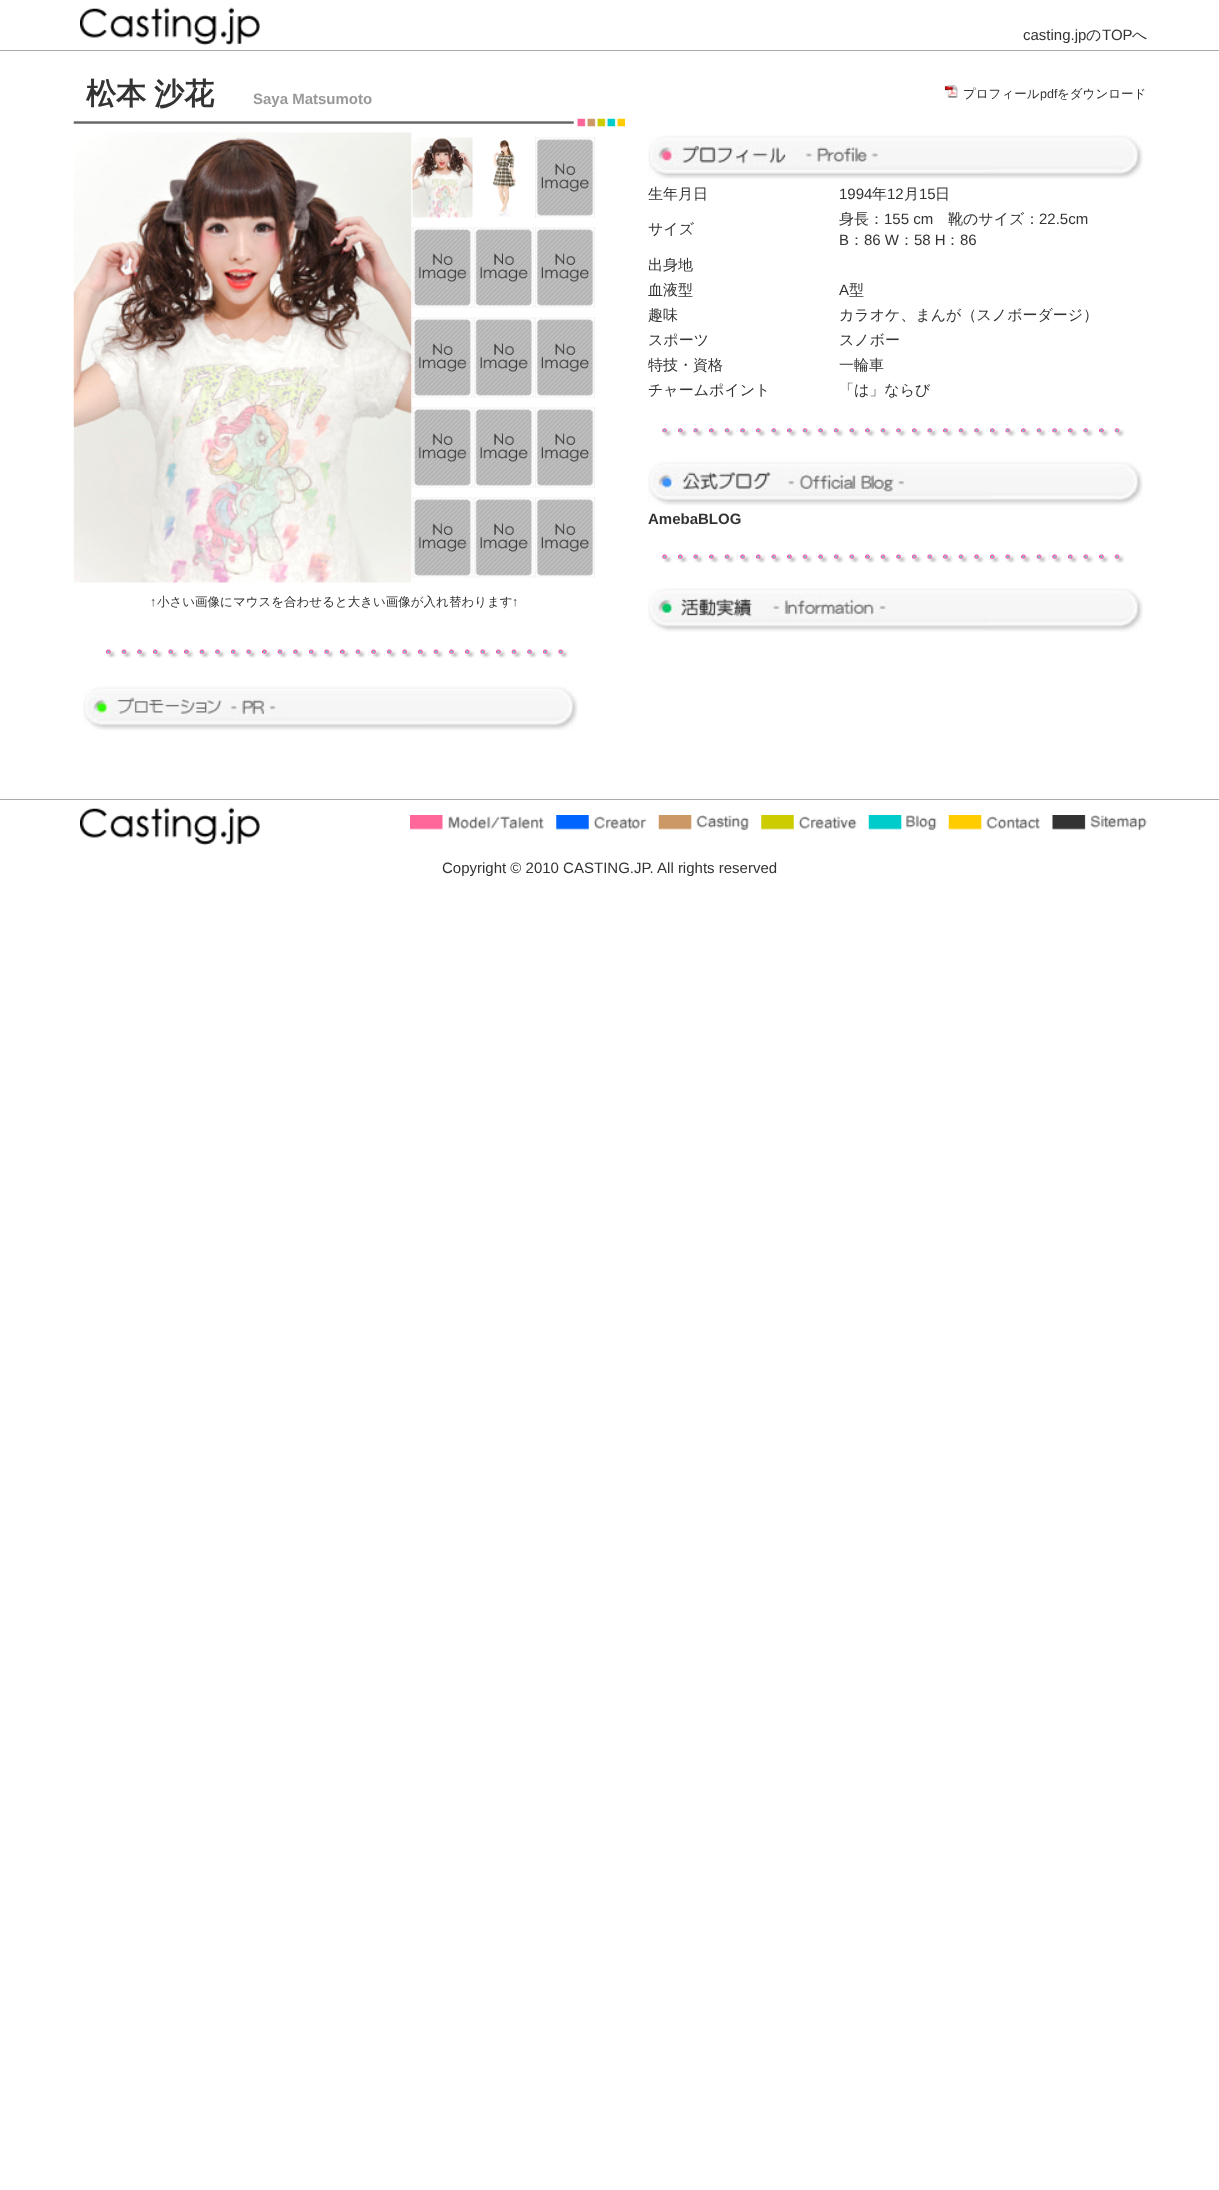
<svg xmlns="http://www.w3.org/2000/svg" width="1219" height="2190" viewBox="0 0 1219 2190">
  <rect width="100%" height="100%" fill="rgb(255,255,255)"/>
  <rect x="0" y="50" width="1219" height="1" fill="rgb(170,170,170)"/>
  <image x="80" y="7" width="180" height="38" href="pic1.png"/>
  <text x="1023" y="40" font-family="Liberation Sans" font-size="15" fill="rgb(51,51,51)">casting.jp</text>
  <text x="1086" y="40" font-family="WenQuanYi Zen Hei" font-size="15" font-weight="500" fill="rgb(51,51,51)">の</text>
  <text x="1102" y="40" font-family="Liberation Sans" font-size="15" fill="rgb(51,51,51)">TOP</text>
  <text x="1132" y="40" font-family="WenQuanYi Zen Hei" font-size="15" font-weight="500" fill="rgb(51,51,51)">へ</text>
  <text x="86" y="104" word-spacing="-1" font-family="WenQuanYi Zen Hei" font-size="30" font-weight="bold" fill="rgb(51,51,51)">松本 沙花</text>
  <text x="253" y="104" font-family="Liberation Sans" font-size="15" font-weight="bold" fill="rgb(153,153,153)">Saya Matsumoto</text>
  <image x="945" y="85" width="13" height="13" href="pic2.png"/>
  <text x="963" y="98" font-family="WenQuanYi Zen Hei" font-size="12.5" font-weight="500" fill="rgb(51,51,51)">プロフィール</text>
  <text x="1040" y="98" font-family="Liberation Sans" font-size="12.5" fill="rgb(51,51,51)">pdf</text>
  <text x="1057" y="98" font-family="WenQuanYi Zen Hei" font-size="12.5" font-weight="500" fill="rgb(51,51,51)">をダウンロード</text>
  <image x="73" y="118" width="552" height="9" href="pic3.png"/>
  <image x="648" y="135" width="495" height="44" href="pic4.png"/>
  <text x="648" y="199" font-family="WenQuanYi Zen Hei" font-size="15" font-weight="500" fill="rgb(51,51,51)">生年月日</text>
  <text x="839" y="199" font-family="Liberation Sans" font-size="15" fill="rgb(51,51,51)">1994</text>
  <text x="872" y="199" font-family="WenQuanYi Zen Hei" font-size="15" font-weight="500" fill="rgb(51,51,51)">年</text>
  <text x="887" y="199" font-family="Liberation Sans" font-size="15" fill="rgb(51,51,51)">12</text>
  <text x="904" y="199" font-family="WenQuanYi Zen Hei" font-size="15" font-weight="500" fill="rgb(51,51,51)">月</text>
  <text x="919" y="199" font-family="Liberation Sans" font-size="15" fill="rgb(51,51,51)">15</text>
  <g font-family="WenQuanYi Zen Hei" font-size="15" font-weight="500" fill="rgb(51,51,51)">
    <text x="935" y="199">日</text>
    <text x="648" y="234">サイズ</text>
    <text x="839" y="224">身長：</text>
  </g>
  <text x="884" y="224" font-family="Liberation Sans" font-size="15" fill="rgb(51,51,51)">155 cm</text>
  <text x="948" y="224" font-family="WenQuanYi Zen Hei" font-size="15" font-weight="500" fill="rgb(51,51,51)">靴のサイズ：</text>
  <g font-family="Liberation Sans" font-size="15" fill="rgb(51,51,51)">
    <text x="1039" y="224">22.5cm</text>
    <text x="839" y="245">B</text>
  </g>
  <text x="849" y="245" font-family="WenQuanYi Zen Hei" font-size="15" font-weight="500" fill="rgb(51,51,51)">：</text>
  <text x="864" y="245" font-family="Liberation Sans" font-size="15" fill="rgb(51,51,51)">86 W</text>
  <text x="899" y="245" font-family="WenQuanYi Zen Hei" font-size="15" font-weight="500" fill="rgb(51,51,51)">：</text>
  <text x="914" y="245" font-family="Liberation Sans" font-size="15" fill="rgb(51,51,51)">58 H</text>
  <text x="945" y="245" font-family="WenQuanYi Zen Hei" font-size="15" font-weight="500" fill="rgb(51,51,51)">：</text>
  <text x="960" y="245" font-family="Liberation Sans" font-size="15" fill="rgb(51,51,51)">86</text>
  <g font-family="WenQuanYi Zen Hei" font-size="15" font-weight="500" fill="rgb(51,51,51)">
    <text>
      <tspan x="648" y="270">出身地</tspan>
      <tspan x="648" y="295">血液型</tspan>
    </text>
  </g>
  <text x="839" y="295" font-family="Liberation Sans" font-size="15" fill="rgb(51,51,51)">A</text>
  <g font-family="WenQuanYi Zen Hei" font-size="15" font-weight="500" fill="rgb(51,51,51)">
    <text x="849" y="295">型</text>
    <text x="648" y="320">趣味</text>
    <text x="839" y="320">カラオケ、まんが（スノボーダージ）</text>
    <text x="648" y="345">スポーツ</text>
    <text x="839" y="345">スノボー</text>
    <text x="648" y="370">特技・資格</text>
    <text x="839" y="370">一輪車</text>
    <text x="648" y="395">チャームポイント</text>
    <text x="839" y="395">「は」ならび</text>
  </g>
  <image x="662" y="428" width="463" height="9" href="pic5.png"/>
  <image x="648" y="461" width="495" height="45" href="pic6.png"/>
  <text x="648" y="524" font-family="Liberation Sans" font-size="15" font-weight="bold" fill="rgb(51,51,51)">AmebaBLOG</text>
  <image x="662" y="554" width="463" height="9" href="pic7.png"/>
  <image x="648" y="588" width="495" height="44" href="pic8.png"/>
  <image x="73" y="132" width="339" height="451" href="pic9.png"/>
  <image x="412" y="137" width="61" height="81" href="pic10.png"/>
  <image x="492" y="140" width="24" height="77" href="pic11.png"/>
  <image x="535" y="137" width="60" height="81" href="pic12.png"/>
  <image x="412" y="227" width="61" height="81" href="pic13.png"/>
  <image x="473" y="227" width="61" height="81" href="pic14.png"/>
  <image x="535" y="227" width="60" height="81" href="pic12.png"/>
  <image x="412" y="317" width="61" height="81" href="pic13.png"/>
  <image x="473" y="317" width="61" height="81" href="pic14.png"/>
  <image x="535" y="317" width="60" height="81" href="pic12.png"/>
  <image x="412" y="407" width="61" height="81" href="pic13.png"/>
  <image x="473" y="407" width="61" height="81" href="pic14.png"/>
  <image x="535" y="407" width="60" height="81" href="pic12.png"/>
  <image x="412" y="497" width="61" height="81" href="pic13.png"/>
  <image x="473" y="497" width="61" height="81" href="pic14.png"/>
  <image x="535" y="497" width="60" height="81" href="pic12.png"/>
  <text x="150" y="606" font-family="Liberation Sans" font-size="12.5" fill="rgb(51,51,51)">↑</text>
  <text x="157" y="606" font-family="WenQuanYi Zen Hei" font-size="12.5" font-weight="500" fill="rgb(51,51,51)">小さい画像にマウスを合わせると大きい画像が入れ替わります</text>
  <text x="512" y="606" font-family="Liberation Sans" font-size="12.5" fill="rgb(51,51,51)">↑</text>
  <image x="106" y="649" width="463" height="9" href="pic15.png"/>
  <image x="83" y="686" width="495" height="45" href="pic16.png"/>
  <rect x="0" y="799" width="1219" height="1" fill="rgb(170,170,170)"/>
  <image x="80" y="807" width="180" height="38" href="pic1.png"/>
  <image x="410" y="815" width="134" height="15" href="pic17.png"/>
  <image x="556" y="815" width="91" height="15" href="pic18.png"/>
  <image x="658" y="815" width="91" height="15" href="pic19.png"/>
  <image x="761" y="815" width="96" height="15" href="pic20.png"/>
  <image x="868" y="815" width="69" height="15" href="pic21.png"/>
  <image x="948" y="815" width="92" height="15" href="pic22.png"/>
  <image x="1052" y="815" width="95" height="15" href="pic23.png"/>
  <text x="442" y="873" font-family="Liberation Sans" font-size="15" fill="rgb(51,51,51)">Copyright © 2010 CASTING.JP. All rights reserved</text>
</svg>
